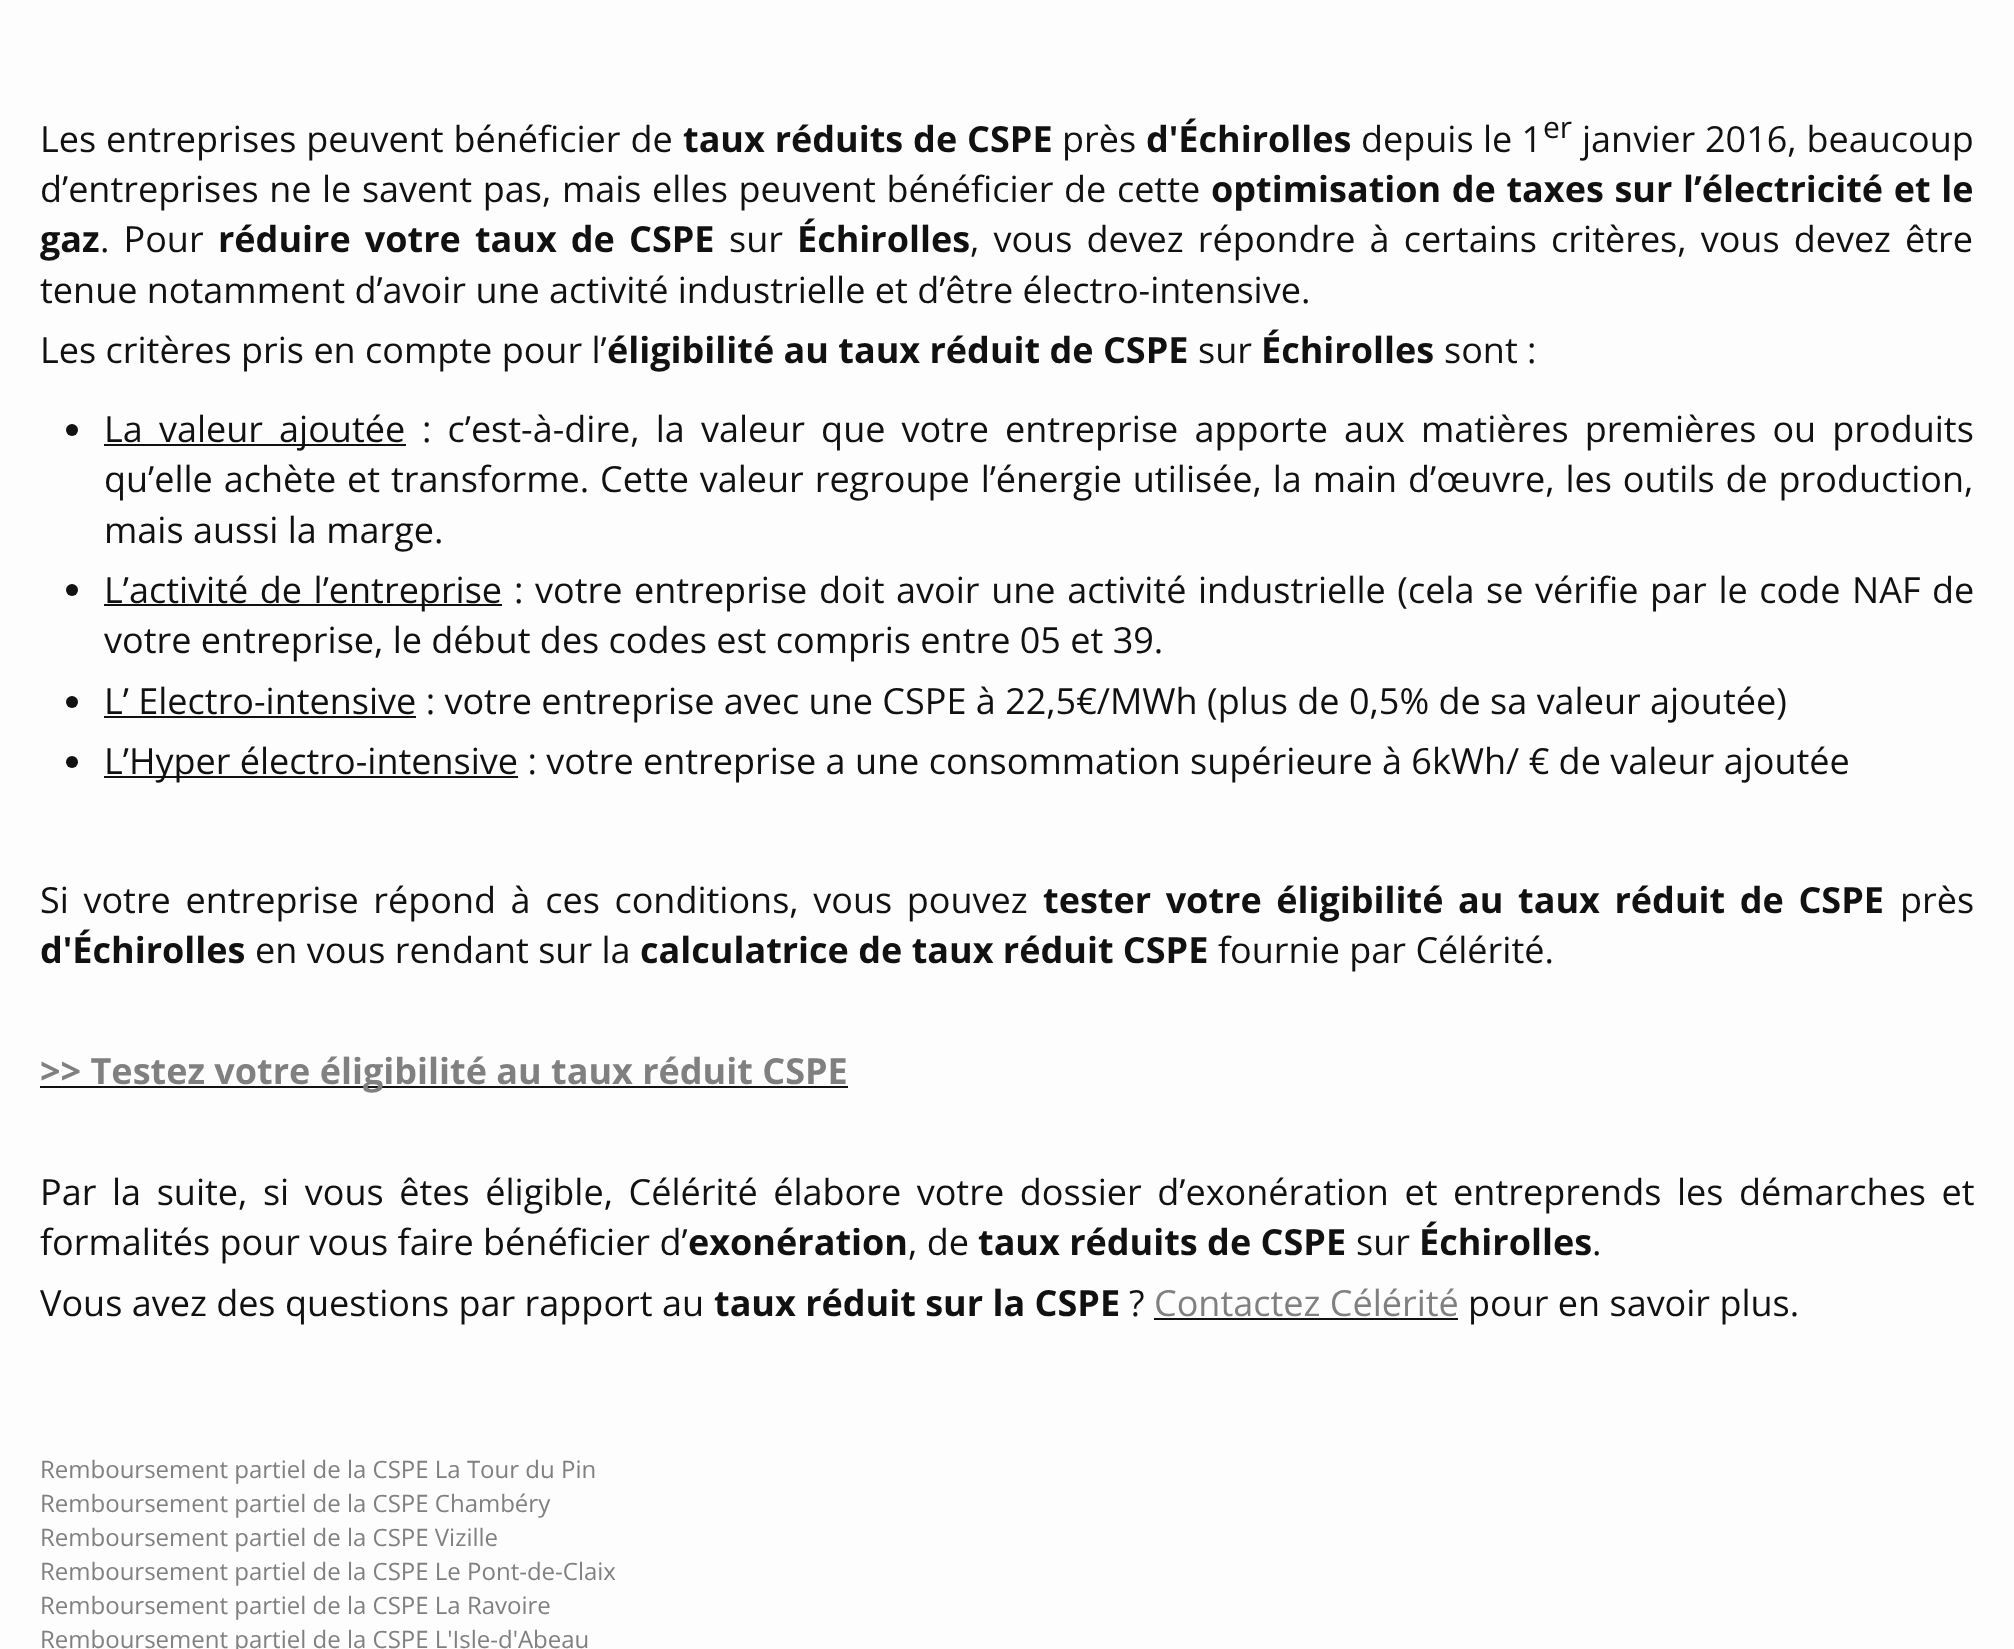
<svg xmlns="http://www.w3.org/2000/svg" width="2014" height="1649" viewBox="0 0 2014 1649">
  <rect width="100%" height="100%" fill="rgb(253,253,253)"/>
  <text x="40" y="152" word-spacing="0.5" font-family="Open Sans" font-size="36" fill="rgb(17,17,17)">Les entreprises peuvent bénéficier de</text>
  <text x="683" y="152" word-spacing="0.5" font-family="Open Sans" font-size="36" font-weight="bold" fill="rgb(17,17,17)">taux réduits de CSPE</text>
  <text x="1062" y="152" font-family="Open Sans" font-size="36" fill="rgb(17,17,17)">près</text>
  <text x="1146" y="152" font-family="Open Sans" font-size="36" font-weight="bold" fill="rgb(17,17,17)">d'Échirolles</text>
  <text x="1361" y="152" font-family="Open Sans" font-size="36" fill="rgb(17,17,17)">depuis le 1</text>
  <text x="1543" y="138" font-family="Open Sans" font-size="30" fill="rgb(17,17,17)">er</text>
  <g font-family="Open Sans" font-size="36" fill="rgb(17,17,17)">
    <text x="1582" y="152" word-spacing="0.5">janvier 2016, beaucoup</text>
    <text x="40" y="202" word-spacing="1.25">d’entreprises ne le savent pas, mais elles peuvent bénéficier de cette</text>
  </g>
  <g font-family="Open Sans" font-size="36" font-weight="bold" fill="rgb(17,17,17)">
    <text x="1211" y="202" word-spacing="1.25">optimisation de taxes sur l’électricité et le</text>
    <text x="40" y="252">gaz</text>
  </g>
  <text x="100" y="252" word-spacing="4.75" font-family="Open Sans" font-size="36" fill="rgb(17,17,17)">. Pour</text>
  <text x="218" y="252" word-spacing="4.75" font-family="Open Sans" font-size="36" font-weight="bold" fill="rgb(17,17,17)">réduire votre taux de CSPE</text>
  <text x="729" y="252" font-family="Open Sans" font-size="36" fill="rgb(17,17,17)">sur</text>
  <text x="797" y="252" font-family="Open Sans" font-size="36" font-weight="bold" fill="rgb(17,17,17)">Échirolles</text>
  <g font-family="Open Sans" font-size="36" fill="rgb(17,17,17)">
    <text x="970" y="252" word-spacing="4.75">, vous devez répondre à certains critères, vous devez être</text>
    <text>
      <tspan x="40" y="303">tenue notamment d’avoir une activité industrielle et d’être électro-intensive.</tspan>
      <tspan x="40" y="363">Les critères pris en compte pour l’</tspan>
    </text>
  </g>
  <text x="607" y="363" font-family="Open Sans" font-size="36" font-weight="bold" fill="rgb(17,17,17)">éligibilité au taux réduit de CSPE</text>
  <text x="1198" y="363" font-family="Open Sans" font-size="36" fill="rgb(17,17,17)">sur</text>
  <text x="1261" y="363" font-family="Open Sans" font-size="36" font-weight="bold" fill="rgb(17,17,17)">Échirolles</text>
  <text x="1444" y="363" font-family="Open Sans" font-size="36" fill="rgb(17,17,17)">sont :</text>
  <circle cx="72" cy="430" r="6" fill="rgb(17,17,17)"/>
  <rect x="104" y="444" width="302" height="2" fill="rgb(17,17,17)"/>
  <g font-family="Open Sans" font-size="36" fill="rgb(17,17,17)">
    <text x="104" y="442" word-spacing="6.75">La valeur ajoutée</text>
    <text x="422" y="442" word-spacing="6.75">: c’est-à-dire, la valeur que votre entreprise apporte aux matières premières ou produits</text>
    <text>
      <tspan x="104" y="492" word-spacing="1.5">qu’elle achète et transforme. Cette valeur regroupe l’énergie utilisée, la main d’œuvre, les outils de production,</tspan>
      <tspan x="104" y="543">mais aussi la marge.</tspan>
    </text>
  </g>
  <circle cx="72" cy="590" r="6" fill="rgb(17,17,17)"/>
  <rect x="104" y="604" width="398" height="2" fill="rgb(17,17,17)"/>
  <g font-family="Open Sans" font-size="36" fill="rgb(17,17,17)">
    <text x="104" y="603" word-spacing="2.25">L’activité de l’entreprise</text>
    <text x="514" y="603" word-spacing="2.25">: votre entreprise doit avoir une activité industrielle (cela se vérifie par le code NAF de</text>
    <text x="104" y="653">votre entreprise, le début des codes est compris entre 05 et 39.</text>
  </g>
  <circle cx="72" cy="702" r="6" fill="rgb(17,17,17)"/>
  <rect x="104" y="716" width="312" height="2" fill="rgb(17,17,17)"/>
  <text x="104" y="714" font-family="Open Sans" font-size="36" fill="rgb(17,17,17)">L’ Electro-intensive : votre entreprise avec une CSPE à 22,5€/MWh (plus de 0,5% de sa valeur ajoutée)</text>
  <circle cx="72" cy="762" r="6" fill="rgb(17,17,17)"/>
  <rect x="104" y="776" width="414" height="2" fill="rgb(17,17,17)"/>
  <g font-family="Open Sans" font-size="36" fill="rgb(17,17,17)">
    <text x="104" y="774">L’Hyper électro-intensive : votre entreprise a une consommation supérieure à 6kWh/ € de valeur ajoutée</text>
    <text x="40" y="913" word-spacing="5.25">Si votre entreprise répond à ces conditions, vous pouvez</text>
  </g>
  <text x="1043" y="913" word-spacing="5.25" font-family="Open Sans" font-size="36" font-weight="bold" fill="rgb(17,17,17)">tester votre éligibilité au taux réduit de CSPE</text>
  <text x="1900" y="913" font-family="Open Sans" font-size="36" fill="rgb(17,17,17)">près</text>
  <text x="40" y="963" font-family="Open Sans" font-size="36" font-weight="bold" fill="rgb(17,17,17)">d'Échirolles</text>
  <text x="255" y="963" font-family="Open Sans" font-size="36" fill="rgb(17,17,17)">en vous rendant sur la</text>
  <text x="640" y="963" font-family="Open Sans" font-size="36" font-weight="bold" fill="rgb(17,17,17)">calculatrice de taux réduit CSPE</text>
  <text x="1218" y="963" font-family="Open Sans" font-size="36" fill="rgb(17,17,17)">fournie par Célérité.</text>
  <rect x="40" y="1086" width="808" height="2" fill="rgb(17,17,17)"/>
  <text x="40" y="1084" font-family="Open Sans" font-size="36" font-weight="bold" fill="rgb(128,128,128)">&gt;&gt; Testez votre éligibilité au taux réduit CSPE</text>
  <g font-family="Open Sans" font-size="36" fill="rgb(17,17,17)">
    <text>
      <tspan x="40" y="1205" word-spacing="6.25">Par la suite, si vous êtes éligible, Célérité élabore votre dossier d’exonération et entreprends les démarches et</tspan>
      <tspan x="40" y="1255">formalités pour vous faire bénéficier d’</tspan>
    </text>
  </g>
  <text x="688" y="1255" font-family="Open Sans" font-size="36" font-weight="bold" fill="rgb(17,17,17)">exonération</text>
  <text x="908" y="1255" font-family="Open Sans" font-size="36" fill="rgb(17,17,17)">, de</text>
  <text x="978" y="1255" font-family="Open Sans" font-size="36" font-weight="bold" fill="rgb(17,17,17)">taux réduits de CSPE</text>
  <text x="1356" y="1255" font-family="Open Sans" font-size="36" fill="rgb(17,17,17)">sur</text>
  <text x="1419" y="1255" font-family="Open Sans" font-size="36" font-weight="bold" fill="rgb(17,17,17)">Échirolles</text>
  <g font-family="Open Sans" font-size="36" fill="rgb(17,17,17)">
    <text x="1592" y="1255">.</text>
    <text x="40" y="1316">Vous avez des questions par rapport au</text>
  </g>
  <text x="714" y="1316" font-family="Open Sans" font-size="36" font-weight="bold" fill="rgb(17,17,17)">taux réduit sur la CSPE</text>
  <text x="1129" y="1316" font-family="Open Sans" font-size="36" fill="rgb(17,17,17)">?</text>
  <text x="1154" y="1316" font-family="Open Sans" font-size="36" fill="rgb(128,128,128)">Contactez Célérité</text>
  <rect x="1154" y="1318" width="304" height="2" fill="rgb(17,17,17)"/>
  <text x="1468" y="1316" font-family="Open Sans" font-size="36" fill="rgb(17,17,17)">pour en savoir plus.</text>
  <g font-family="Open Sans" font-size="24" fill="rgb(128,128,128)">
    <text>
      <tspan x="40" y="1478">Remboursement partiel de la CSPE La Tour du Pin</tspan>
      <tspan x="40" y="1512">Remboursement partiel de la CSPE Chambéry</tspan>
      <tspan x="40" y="1546">Remboursement partiel de la CSPE Vizille</tspan>
      <tspan x="40" y="1580">Remboursement partiel de la CSPE Le Pont-de-Claix</tspan>
      <tspan x="40" y="1614">Remboursement partiel de la CSPE La Ravoire</tspan>
      <tspan x="40" y="1648">Remboursement partiel de la CSPE L'Isle-d'Abeau</tspan>
    </text>
  </g>
</svg>
